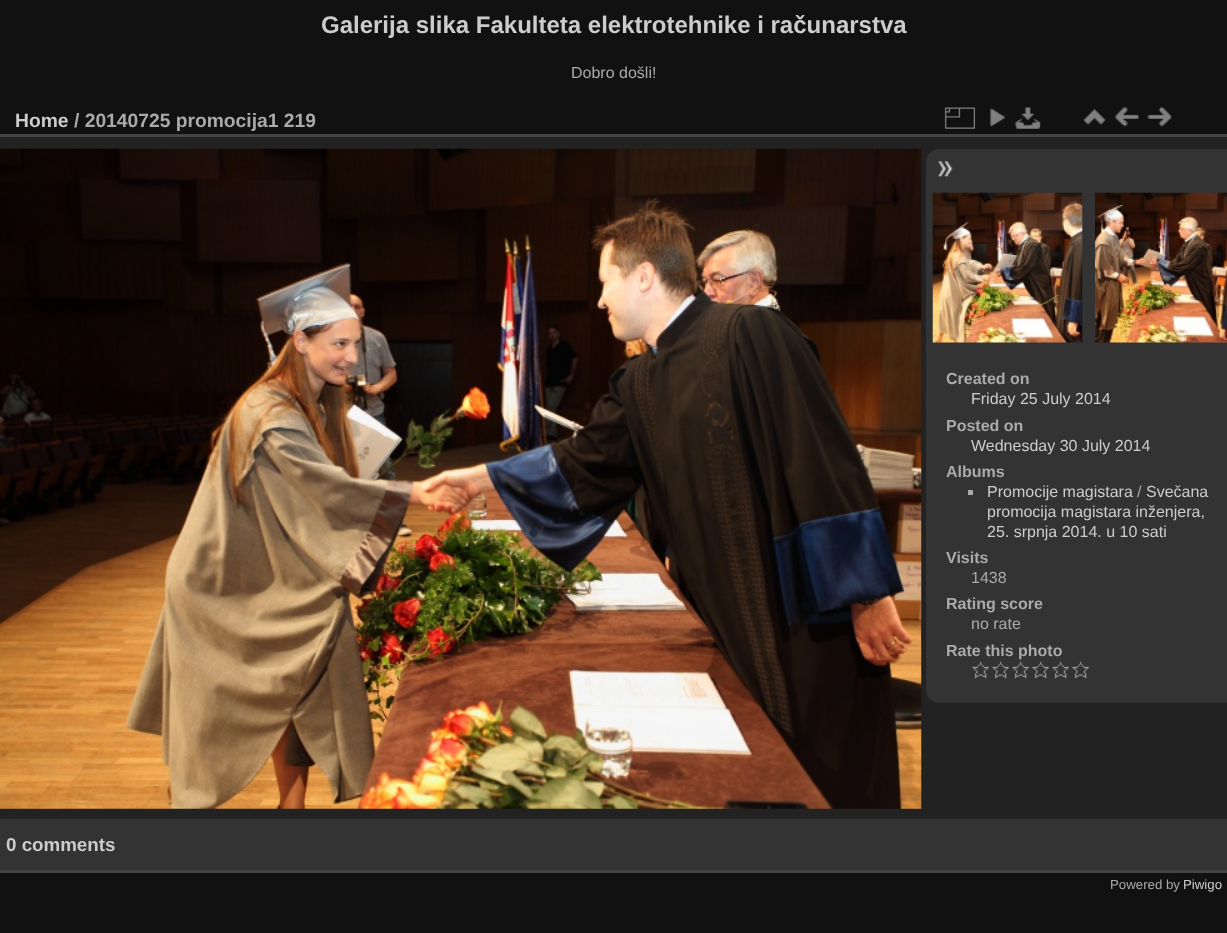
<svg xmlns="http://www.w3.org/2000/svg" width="1227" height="933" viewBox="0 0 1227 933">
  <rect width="100%" height="100%" fill="rgb(17,17,17)"/>
  <text x="321" y="33" font-family="Liberation Sans" font-size="24" font-weight="bold" fill="rgb(204,204,204)">Galerija slika Fakulteta elektrotehnike i računarstva</text>
  <text x="571" y="78" font-family="Liberation Sans" font-size="16" fill="rgb(170,170,170)">Dobro došli!</text>
  <rect x="0" y="137" width="1227" height="682" fill="rgb(34,34,34)"/>
  <rect x="0" y="870" width="1227" height="3" fill="rgb(68,68,68)"/>
  <rect x="0" y="134" width="1227" height="3" fill="rgb(68,68,68)"/>
  <text x="15" y="127" font-family="Liberation Sans" font-size="19.25" font-weight="bold" fill="rgb(204,204,204)">Home</text>
  <text x="74" y="127" font-family="Liberation Sans" font-size="19.25" font-weight="bold" fill="rgb(170,170,170)">/ 20140725 promocija1 219</text>
  <image x="944" y="107" width="31" height="22" href="pic1.png"/>
  <image x="990" y="108" width="16" height="19" href="pic2.png"/>
  <image x="1015" y="107" width="26" height="22" href="pic3.png"/>
  <image x="1083" y="108" width="23" height="17" href="pic4.png"/>
  <image x="1115" y="107" width="24" height="20" href="pic5.png"/>
  <image x="1147" y="107" width="25" height="20" href="pic6.png"/>
  <image x="0" y="148" width="922" height="661" href="pic7.png"/>
  <path d="M939 149H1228V703H939C932 703 926 697 926 690V162C926 155 932 149 939 149Z" fill="rgb(51,51,51)"/>
  <image x="938" y="161" width="15" height="16" href="pic8.png"/>
  <image x="932" y="192" width="151" height="151" href="pic9.png"/>
  <image x="1095" y="192" width="132" height="151" href="pic10.png"/>
  <text x="946" y="384" font-family="Liberation Sans" font-size="16" font-weight="bold" fill="rgb(170,170,170)">Created on</text>
  <text x="971" y="404" font-family="Liberation Sans" font-size="16" fill="rgb(204,204,204)">Friday 25 July 2014</text>
  <text x="946" y="431" font-family="Liberation Sans" font-size="16" font-weight="bold" fill="rgb(170,170,170)">Posted on</text>
  <text x="971" y="451" font-family="Liberation Sans" font-size="16" fill="rgb(204,204,204)">Wednesday 30 July 2014</text>
  <text x="946" y="477" font-family="Liberation Sans" font-size="16" font-weight="bold" fill="rgb(170,170,170)">Albums</text>
  <rect x="968" y="490" width="5" height="5" fill="rgb(170,170,170)"/>
  <text x="987" y="497" font-family="Liberation Sans" font-size="16" fill="rgb(204,204,204)">Promocije magistara</text>
  <text x="1137" y="497" font-family="Liberation Sans" font-size="16" fill="rgb(170,170,170)">/</text>
  <g font-family="Liberation Sans" font-size="16" fill="rgb(204,204,204)">
    <text x="1146" y="497">Svečana</text>
    <text>
      <tspan x="987" y="517">promocija magistara inženjera,</tspan>
      <tspan x="987" y="537">25. srpnja 2014. u 10 sati</tspan>
    </text>
  </g>
  <text x="946" y="563" font-family="Liberation Sans" font-size="16" font-weight="bold" fill="rgb(170,170,170)">Visits</text>
  <text x="971" y="583" font-family="Liberation Sans" font-size="16" fill="rgb(170,170,170)">1438</text>
  <text x="946" y="609" font-family="Liberation Sans" font-size="16" font-weight="bold" fill="rgb(170,170,170)">Rating score</text>
  <text x="971" y="629" font-family="Liberation Sans" font-size="16" fill="rgb(170,170,170)">no rate</text>
  <text x="946" y="656" font-family="Liberation Sans" font-size="16" font-weight="bold" fill="rgb(170,170,170)">Rate this photo</text>
  <image x="972" y="661" width="17" height="18" href="pic11.png"/>
  <image x="992" y="661" width="17" height="18" href="pic11.png"/>
  <image x="1012" y="661" width="17" height="18" href="pic12.png"/>
  <image x="1032" y="661" width="17" height="18" href="pic13.png"/>
  <image x="1052" y="661" width="17" height="18" href="pic11.png"/>
  <image x="1072" y="661" width="17" height="18" href="pic13.png"/>
  <rect x="0" y="819" width="1227" height="51" fill="rgb(51,51,51)"/>
  <text x="6" y="851" font-family="Liberation Sans" font-size="18.75" font-weight="bold" fill="rgb(204,204,204)">0 comments</text>
  <text x="1110" y="889" font-family="Liberation Sans" font-size="13.25" fill="rgb(170,170,170)">Powered by</text>
  <text x="1183" y="889" font-family="Liberation Sans" font-size="13.25" fill="rgb(204,204,204)">Piwigo</text>
</svg>
